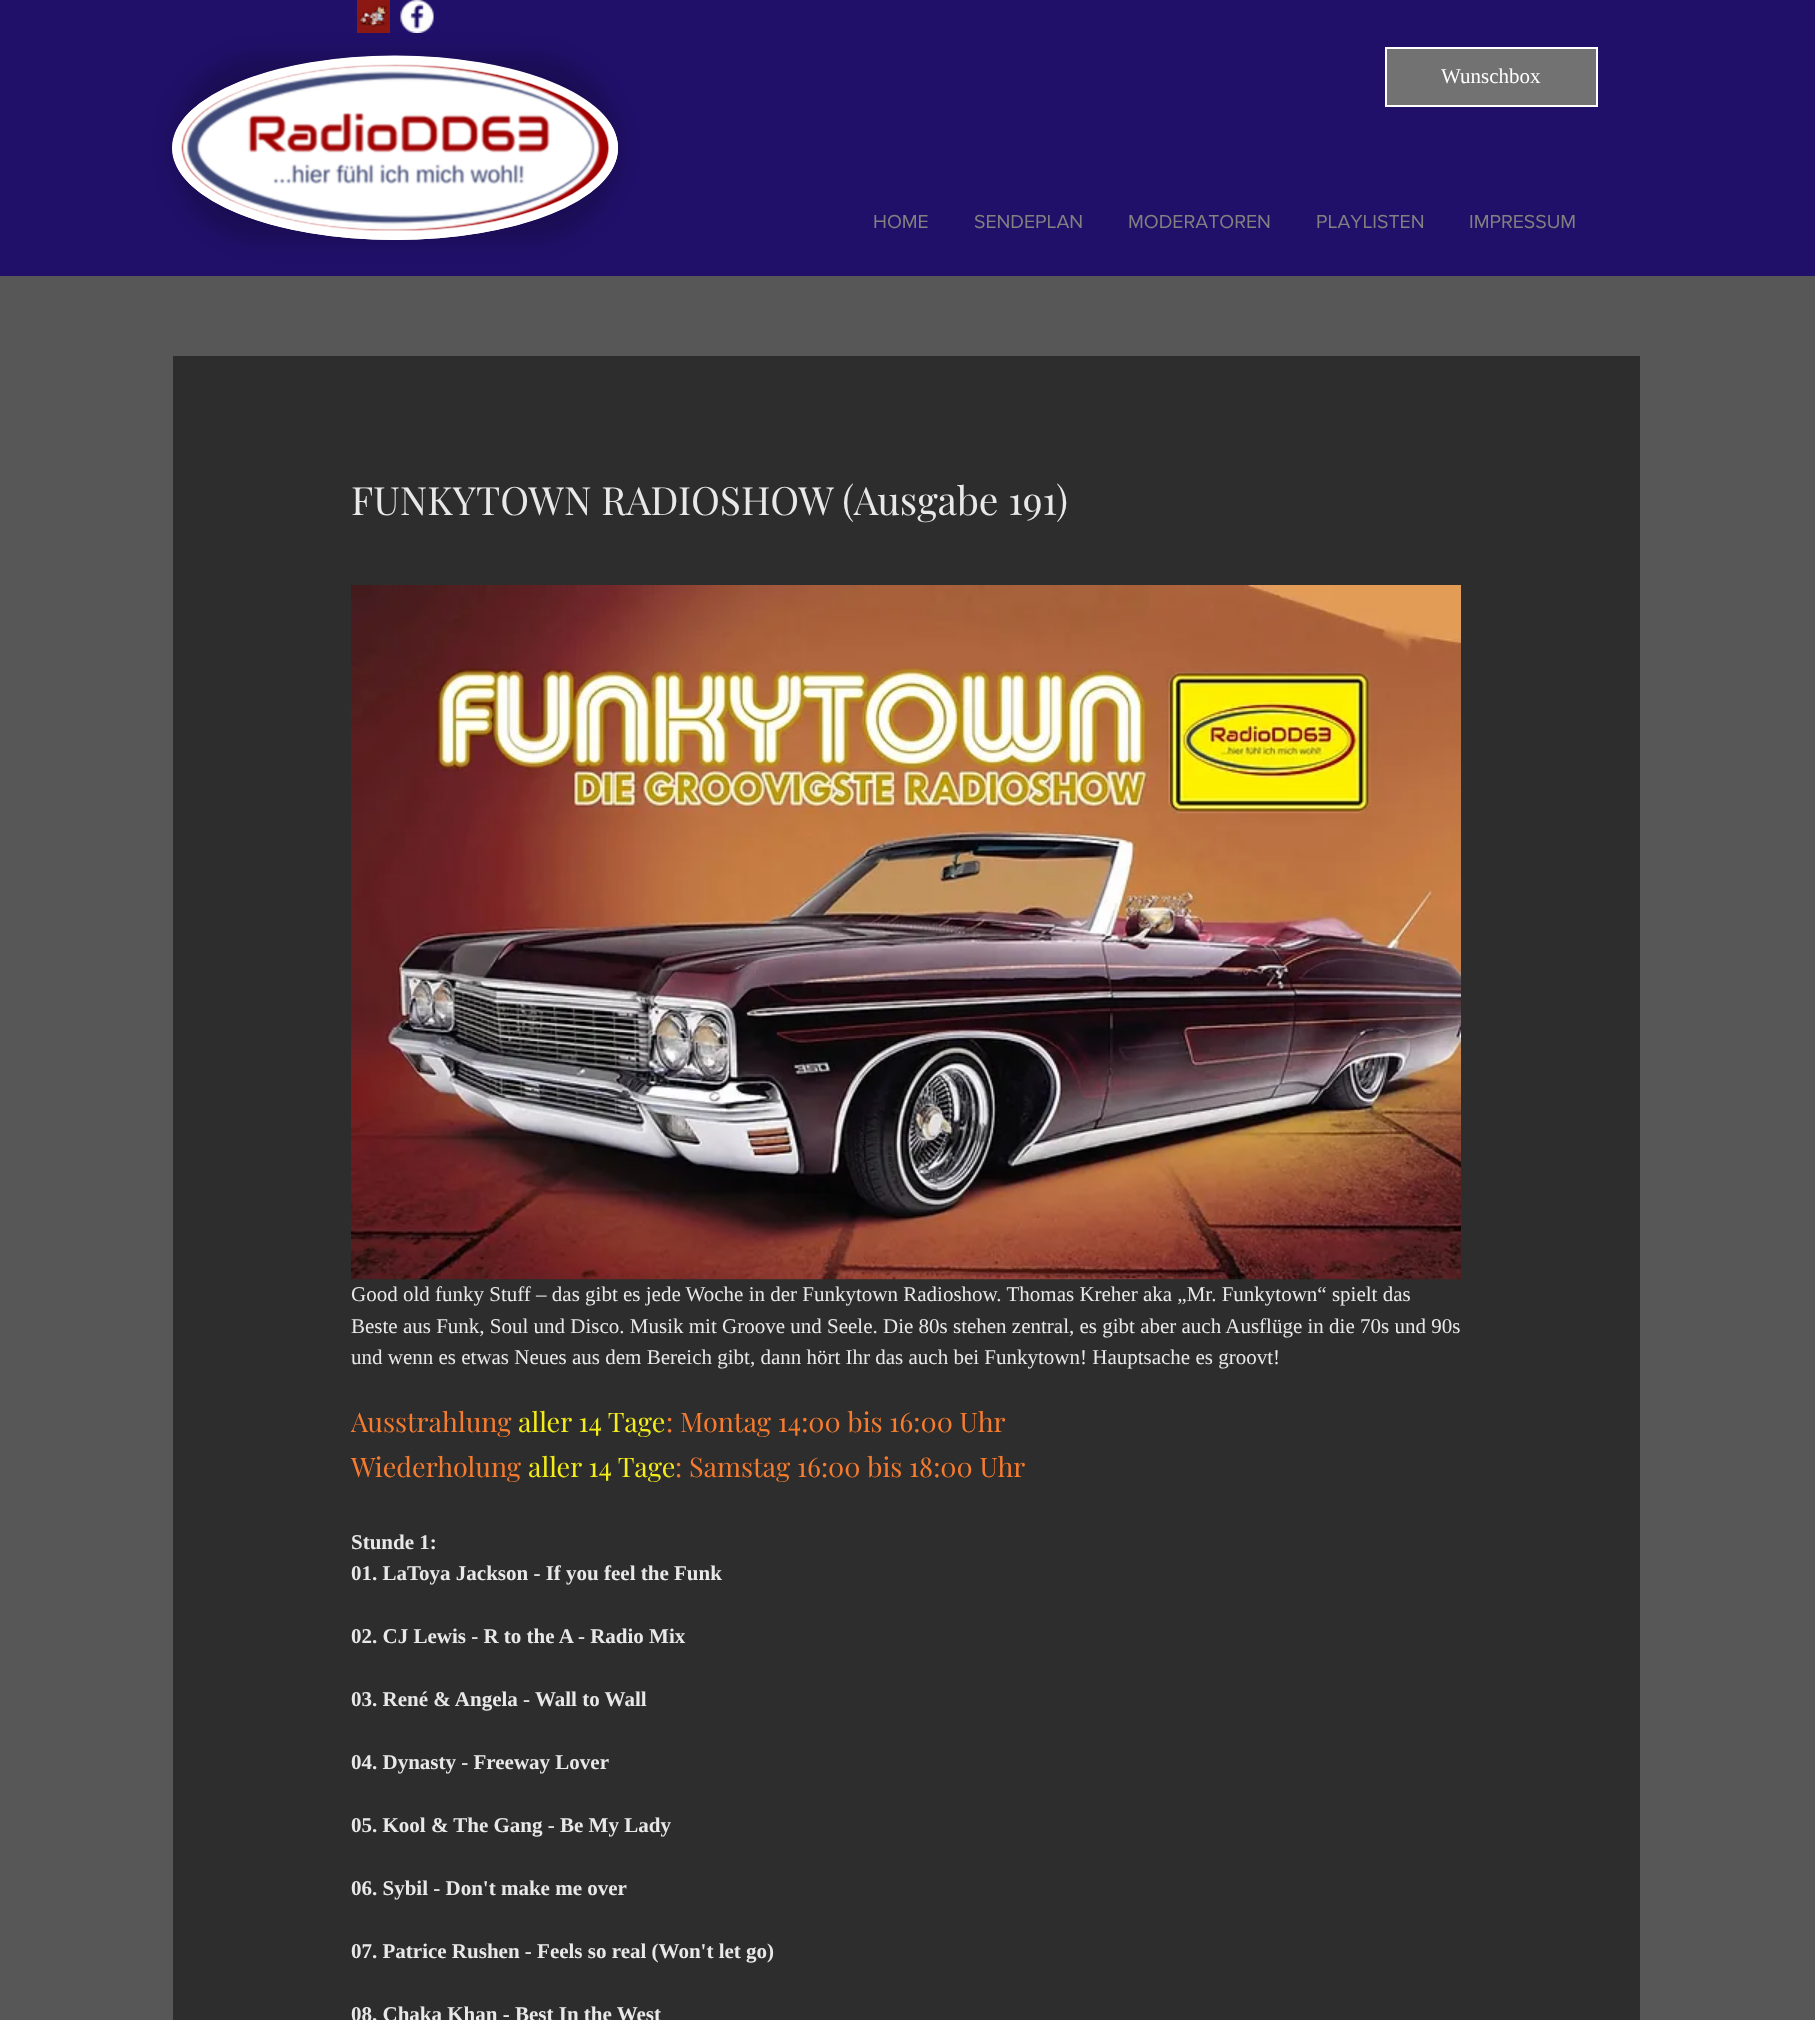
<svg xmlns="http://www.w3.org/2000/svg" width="1815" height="2020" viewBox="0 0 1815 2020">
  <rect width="100%" height="100%" fill="rgb(87,87,87)"/>
  <rect x="0" y="0" width="1815" height="276" fill="rgb(33,16,105)"/>
  <image x="357" y="0" width="33" height="33" href="pic1.png"/>
  <image x="400" y="0" width="34" height="33" href="pic2.png"/>
  <rect x="173" y="56" width="445" height="184" rx="92" fill="rgba(0,0,0,0.2)" filter="blur(10.5px)"/>
  <ellipse cx="395" cy="148" rx="223" ry="92" fill="rgb(255,255,255)"/>
  <path d="M395 60C516 60 613.5 99.5 613.5 148C613.5 196 516 235.5 395 235.5C274.5 235.5 177 196 177 148C177 99.5 274.5 60 395 60Z" fill="none" stroke="rgb(255,255,255)" stroke-width="9"/>
  <image x="181" y="64" width="428" height="167" href="pic3.png"/>
  <rect x="1386" y="48" width="211" height="58" fill="rgb(114,114,114)" stroke="rgb(255,255,255)" stroke-width="2"/>
  <text x="1441" y="83" font-family="Liberation Serif" font-size="21" fill="rgb(255,255,255)">Wunschbox</text>
  <g font-family="'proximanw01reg'" font-size="19.5" fill="rgb(129,129,129)">
    <text x="873" y="228">HOME</text>
    <text x="974" y="228">SENDEPLAN</text>
    <text x="1128" y="228">MODERATOREN</text>
    <text x="1316" y="228">PLAYLISTEN</text>
    <text x="1469" y="228">IMPRESSUM</text>
  </g>
  <rect x="173" y="356" width="1467" height="1664" fill="rgb(45,45,45)"/>
  <text x="351" y="515" font-family="Playfair Display" font-size="39" fill="rgb(232,232,232)">FUNKYTOWN RADIOSHOW (Ausgabe 191)</text>
  <image x="351" y="585" width="1110" height="695" href="pic4.png"/>
  <g font-family="Liberation Serif" font-size="21" fill="rgb(232,232,232)">
    <text>
      <tspan x="351" y="1301">Good old funky Stuff – das gibt es jede Woche in der Funkytown Radioshow. Thomas Kreher aka „Mr. Funkytown“ spielt das</tspan>
      <tspan x="351" y="1333">Beste aus Funk, Soul und Disco. Musik mit Groove und Seele. Die 80s stehen zentral, es gibt aber auch Ausflüge in die 70s und 90s</tspan>
      <tspan x="351" y="1364">und wenn es etwas Neues aus dem Bereich gibt, dann hört Ihr das auch bei Funkytown! Hauptsache es groovt!</tspan>
    </text>
  </g>
  <text x="351" y="1432" font-family="Playfair Display" font-size="27" fill="rgb(245,123,47)">Ausstrahlung</text>
  <text x="518" y="1432" font-family="Playfair Display" font-size="27" fill="rgb(243,236,24)">aller 14 Tage</text>
  <g font-family="Playfair Display" font-size="27" fill="rgb(245,123,47)">
    <text x="666" y="1432">: Montag 14:00 bis 16:00 Uhr</text>
    <text x="351" y="1477">Wiederholung</text>
  </g>
  <text x="528" y="1477" font-family="Playfair Display" font-size="27" fill="rgb(243,236,24)">aller 14 Tage</text>
  <text x="675" y="1477" font-family="Playfair Display" font-size="27" fill="rgb(245,123,47)">: Samstag 16:00 bis 18:00 Uhr</text>
  <g font-family="Liberation Serif" font-size="21" font-weight="bold" fill="rgb(232,232,232)">
    <text>
      <tspan x="351" y="1549">Stunde 1:</tspan>
      <tspan x="351" y="1580">01. LaToya Jackson - If you feel the Funk</tspan>
    </text>
    <text x="351" y="1643">02. CJ Lewis - R to the A - Radio Mix</text>
    <text x="351" y="1706">03. René &amp; Angela - Wall to Wall</text>
    <text x="351" y="1769">04. Dynasty - Freeway Lover</text>
    <text x="351" y="1832">05. Kool &amp; The Gang - Be My Lady</text>
    <text x="351" y="1895">06. Sybil - Don't make me over</text>
    <text x="351" y="1958">07. Patrice Rushen - Feels so real (Won't let go)</text>
    <text x="351" y="2021">08. Chaka Khan - Best In the West</text>
  </g>
</svg>
